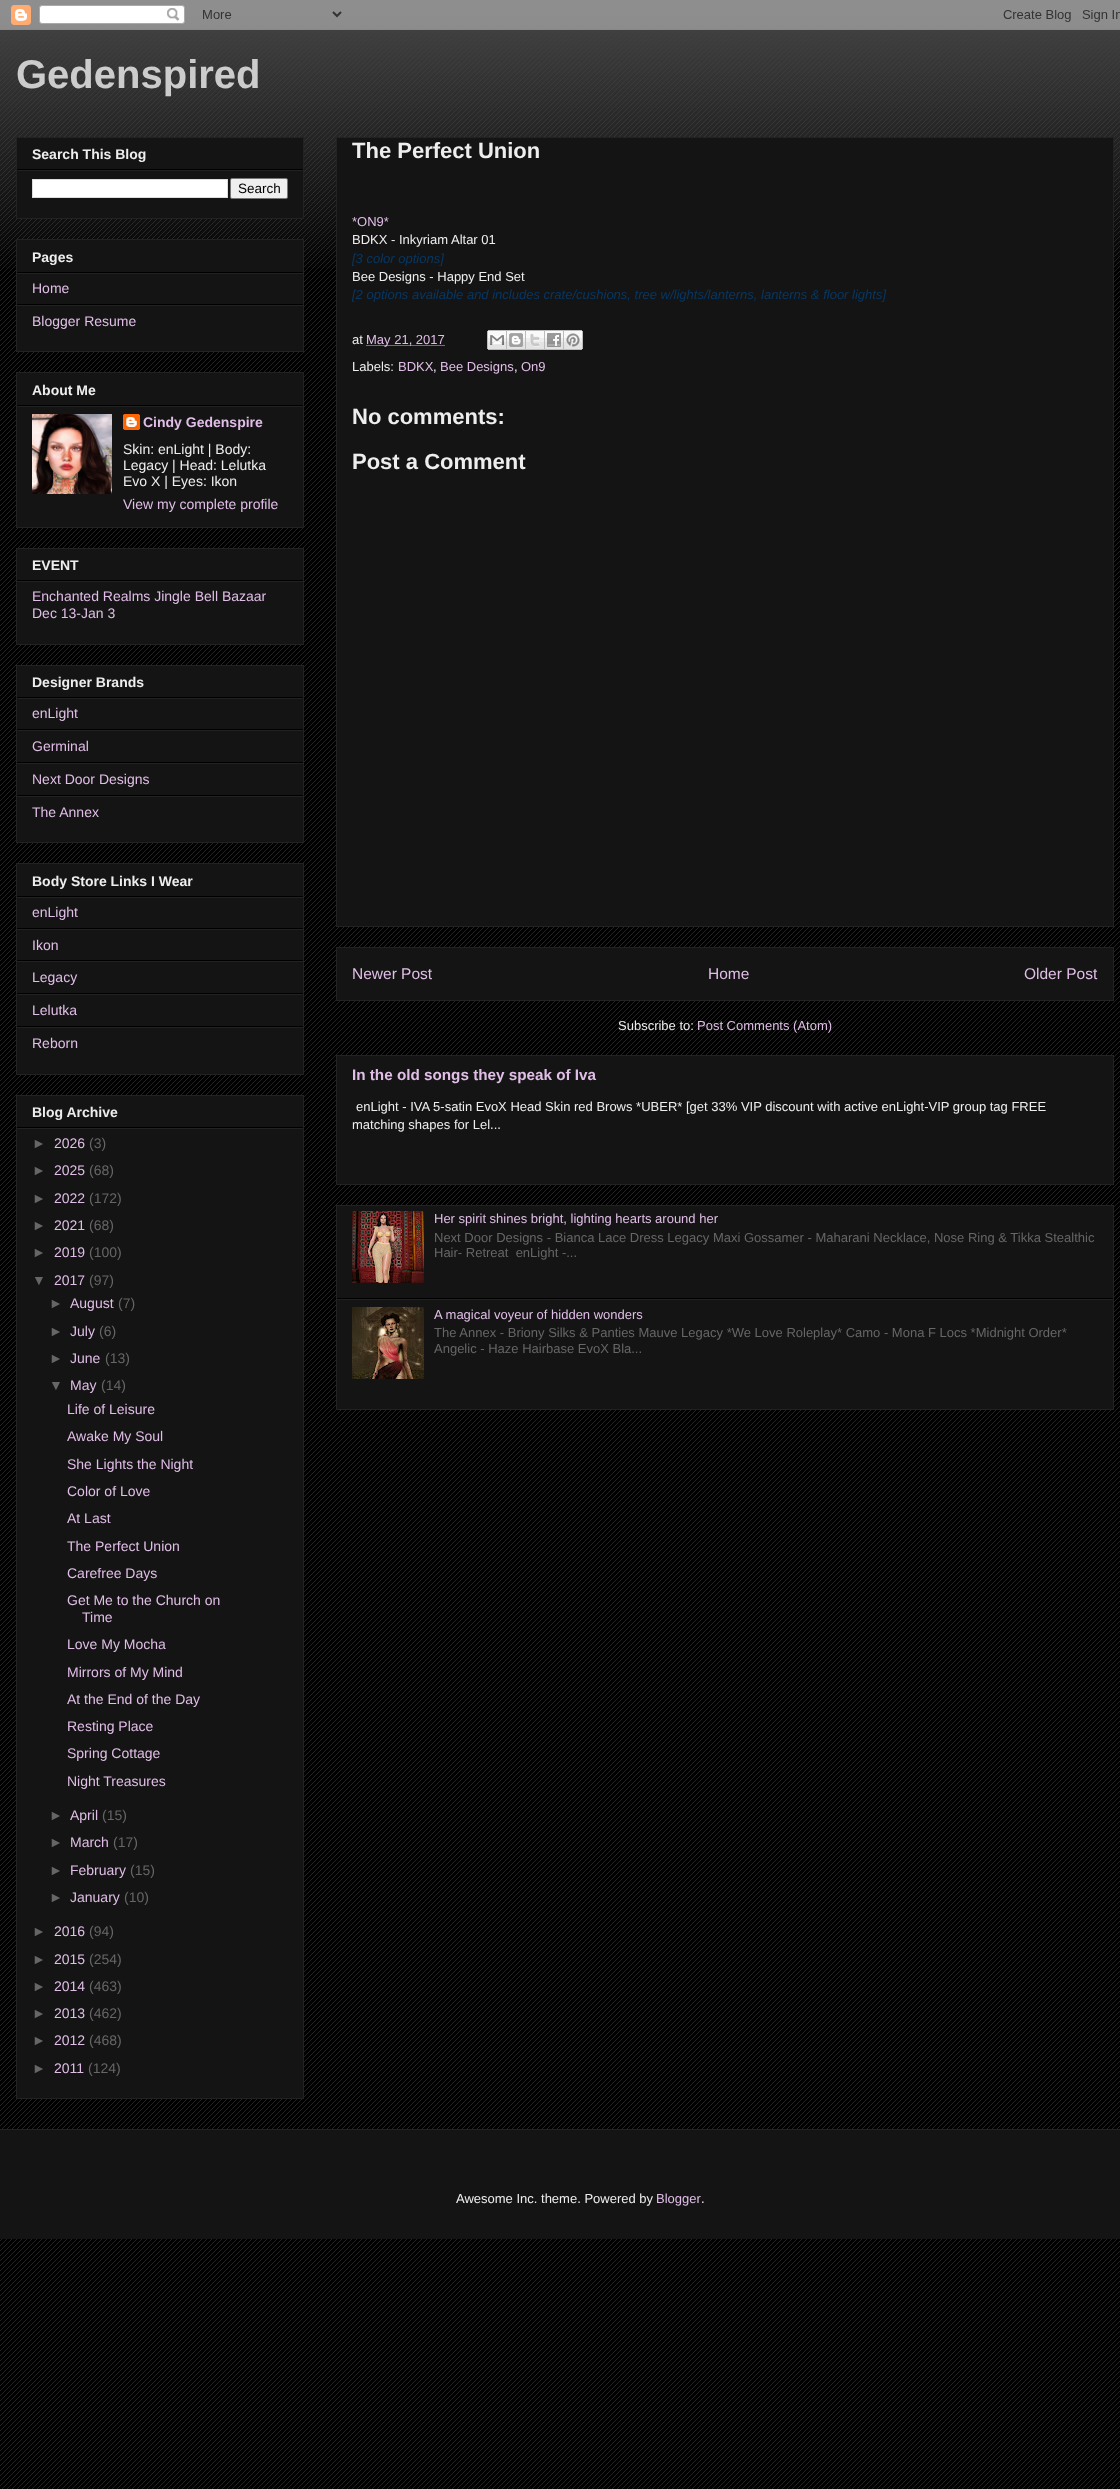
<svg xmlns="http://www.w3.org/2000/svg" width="1120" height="2489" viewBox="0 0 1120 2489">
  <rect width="100%" height="100%" fill="rgb(0,0,0)"/>
  <image x="0" y="13" width="1120" height="2476" href="pic1.png"/>
  <image x="0" y="0" width="1120" height="268" href="pic2.png"/>
  <image x="0" y="0" width="1120" height="30" href="pic3.png"/>
  <text x="16" y="88" font-family="Liberation Sans" font-size="40" font-weight="bold" fill="rgb(204,204,204)">Gedenspired</text>
  <rect x="16.5" y="137.5" width="287" height="81" fill="rgb(20,20,20)" stroke="rgb(34,34,34)"/>
  <rect x="17" y="169" width="286" height="1" fill="rgb(0,0,0)"/>
  <text x="32" y="159" font-family="Liberation Sans" font-size="14" font-weight="bold" fill="rgb(238,238,238)">Search This Blog</text>
  <rect x="17" y="170" width="286" height="1" fill="rgb(34,34,34)"/>
  <rect x="32.5" y="179.5" width="195" height="18" fill="rgb(255,255,255)" stroke="rgb(221,221,221)"/>
  <rect x="230.5" y="178.5" width="57" height="20" rx="1.5" fill="rgb(239,239,239)" stroke="rgb(118,118,118)"/>
  <text x="238" y="193" font-family="Liberation Sans" font-size="13.5" fill="rgb(0,0,0)">Search</text>
  <rect x="16.5" y="239.5" width="287" height="112" fill="rgb(20,20,20)" stroke="rgb(34,34,34)"/>
  <rect x="17" y="272" width="286" height="1" fill="rgb(0,0,0)"/>
  <text x="32" y="262" font-family="Liberation Sans" font-size="14" font-weight="bold" fill="rgb(238,238,238)">Pages</text>
  <rect x="17" y="273" width="286" height="1" fill="rgb(34,34,34)"/>
  <rect x="17" y="304" width="286" height="1" fill="rgb(0,0,0)"/>
  <text x="32" y="293" font-family="Liberation Sans" font-size="14" fill="rgb(225,190,231)">Home</text>
  <rect x="17" y="305" width="286" height="1" fill="rgb(34,34,34)"/>
  <text x="32" y="326" font-family="Liberation Sans" font-size="14" fill="rgb(225,190,231)">Blogger Resume</text>
  <rect x="16.5" y="372.5" width="287" height="155" fill="rgb(20,20,20)" stroke="rgb(34,34,34)"/>
  <rect x="17" y="405" width="286" height="1" fill="rgb(0,0,0)"/>
  <text x="32" y="395" font-family="Liberation Sans" font-size="14" font-weight="bold" fill="rgb(238,238,238)">About Me</text>
  <rect x="17" y="406" width="286" height="1" fill="rgb(34,34,34)"/>
  <image x="32" y="414" width="80" height="80" href="pic4.png"/>
  <image x="123" y="414" width="17" height="16" href="pic5.png"/>
  <text x="143" y="427" font-family="Liberation Sans" font-size="14" font-weight="bold" fill="rgb(225,190,231)">Cindy Gedenspire</text>
  <g font-family="Liberation Sans" font-size="14" fill="rgb(238,238,238)">
    <text>
      <tspan x="123" y="454">Skin: enLight | Body:</tspan>
      <tspan x="123" y="470">Legacy | Head: Lelutka</tspan>
      <tspan x="123" y="486">Evo X | Eyes: Ikon</tspan>
    </text>
  </g>
  <text x="123" y="509" font-family="Liberation Sans" font-size="14" fill="rgb(225,190,231)">View my complete profile</text>
  <rect x="16.5" y="548.5" width="287" height="96" fill="rgb(20,20,20)" stroke="rgb(34,34,34)"/>
  <rect x="17" y="580" width="286" height="1" fill="rgb(0,0,0)"/>
  <text x="32" y="570" font-family="Liberation Sans" font-size="14" font-weight="bold" fill="rgb(238,238,238)">EVENT</text>
  <rect x="17" y="581" width="286" height="1" fill="rgb(34,34,34)"/>
  <g font-family="Liberation Sans" font-size="14" fill="rgb(225,190,231)">
    <text>
      <tspan x="32" y="601">Enchanted Realms Jingle Bell Bazaar</tspan>
      <tspan x="32" y="618">Dec 13-Jan 3</tspan>
    </text>
  </g>
  <rect x="16.5" y="665.5" width="287" height="177" fill="rgb(20,20,20)" stroke="rgb(34,34,34)"/>
  <rect x="17" y="697" width="286" height="1" fill="rgb(0,0,0)"/>
  <text x="32" y="687" font-family="Liberation Sans" font-size="14" font-weight="bold" fill="rgb(238,238,238)">Designer Brands</text>
  <rect x="17" y="698" width="286" height="1" fill="rgb(34,34,34)"/>
  <rect x="17" y="729" width="286" height="1" fill="rgb(0,0,0)"/>
  <text x="32" y="718" font-family="Liberation Sans" font-size="14" fill="rgb(225,190,231)">enLight</text>
  <rect x="17" y="730" width="286" height="1" fill="rgb(34,34,34)"/>
  <rect x="17" y="762" width="286" height="1" fill="rgb(0,0,0)"/>
  <text x="32" y="751" font-family="Liberation Sans" font-size="14" fill="rgb(225,190,231)">Germinal</text>
  <rect x="17" y="763" width="286" height="1" fill="rgb(34,34,34)"/>
  <rect x="17" y="795" width="286" height="1" fill="rgb(0,0,0)"/>
  <text x="32" y="784" font-family="Liberation Sans" font-size="14" fill="rgb(225,190,231)">Next Door Designs</text>
  <rect x="17" y="796" width="286" height="1" fill="rgb(34,34,34)"/>
  <text x="32" y="817" font-family="Liberation Sans" font-size="14" fill="rgb(225,190,231)">The Annex</text>
  <rect x="16.5" y="863.5" width="287" height="211" fill="rgb(20,20,20)" stroke="rgb(34,34,34)"/>
  <rect x="17" y="896" width="286" height="1" fill="rgb(0,0,0)"/>
  <text x="32" y="886" font-family="Liberation Sans" font-size="14" font-weight="bold" fill="rgb(238,238,238)">Body Store Links I Wear</text>
  <rect x="17" y="897" width="286" height="1" fill="rgb(34,34,34)"/>
  <rect x="17" y="928" width="286" height="1" fill="rgb(0,0,0)"/>
  <text x="32" y="917" font-family="Liberation Sans" font-size="14" fill="rgb(225,190,231)">enLight</text>
  <rect x="17" y="929" width="286" height="1" fill="rgb(34,34,34)"/>
  <rect x="17" y="960" width="286" height="1" fill="rgb(0,0,0)"/>
  <text x="32" y="950" font-family="Liberation Sans" font-size="14" fill="rgb(225,190,231)">Ikon</text>
  <rect x="17" y="961" width="286" height="1" fill="rgb(34,34,34)"/>
  <rect x="17" y="993" width="286" height="1" fill="rgb(0,0,0)"/>
  <text x="32" y="982" font-family="Liberation Sans" font-size="14" fill="rgb(225,190,231)">Legacy</text>
  <rect x="17" y="994" width="286" height="1" fill="rgb(34,34,34)"/>
  <rect x="17" y="1026" width="286" height="1" fill="rgb(0,0,0)"/>
  <text x="32" y="1015" font-family="Liberation Sans" font-size="14" fill="rgb(225,190,231)">Lelutka</text>
  <rect x="17" y="1027" width="286" height="1" fill="rgb(34,34,34)"/>
  <text x="32" y="1048" font-family="Liberation Sans" font-size="14" fill="rgb(225,190,231)">Reborn</text>
  <rect x="16.5" y="1095.5" width="287" height="1003" fill="rgb(20,20,20)" stroke="rgb(34,34,34)"/>
  <rect x="17" y="1127" width="286" height="1" fill="rgb(0,0,0)"/>
  <text x="32" y="1117" font-family="Liberation Sans" font-size="14" font-weight="bold" fill="rgb(238,238,238)">Blog Archive</text>
  <rect x="17" y="1128" width="286" height="1" fill="rgb(34,34,34)"/>
  <text x="32" y="1148" font-family="Liberation Sans" font-size="14" fill="rgb(102,102,102)">►</text>
  <text x="54" y="1148" font-family="Liberation Sans" font-size="14" fill="rgb(225,190,231)">2026</text>
  <g font-family="Liberation Sans" font-size="14" fill="rgb(102,102,102)">
    <text x="89" y="1148">(3)</text>
    <text x="32" y="1175">►</text>
  </g>
  <text x="54" y="1175" font-family="Liberation Sans" font-size="14" fill="rgb(225,190,231)">2025</text>
  <g font-family="Liberation Sans" font-size="14" fill="rgb(102,102,102)">
    <text x="89" y="1175">(68)</text>
    <text x="32" y="1203">►</text>
  </g>
  <text x="54" y="1203" font-family="Liberation Sans" font-size="14" fill="rgb(225,190,231)">2022</text>
  <g font-family="Liberation Sans" font-size="14" fill="rgb(102,102,102)">
    <text x="89" y="1203">(172)</text>
    <text x="32" y="1230">►</text>
  </g>
  <text x="54" y="1230" font-family="Liberation Sans" font-size="14" fill="rgb(225,190,231)">2021</text>
  <g font-family="Liberation Sans" font-size="14" fill="rgb(102,102,102)">
    <text x="89" y="1230">(68)</text>
    <text x="32" y="1257">►</text>
  </g>
  <text x="54" y="1257" font-family="Liberation Sans" font-size="14" fill="rgb(225,190,231)">2019</text>
  <g font-family="Liberation Sans" font-size="14" fill="rgb(102,102,102)">
    <text x="89" y="1257">(100)</text>
    <text x="32" y="1285">▼</text>
  </g>
  <text x="54" y="1285" font-family="Liberation Sans" font-size="14" fill="rgb(225,190,231)">2017</text>
  <g font-family="Liberation Sans" font-size="14" fill="rgb(102,102,102)">
    <text x="89" y="1285">(97)</text>
    <text x="49" y="1308">►</text>
  </g>
  <text x="70" y="1308" font-family="Liberation Sans" font-size="14" fill="rgb(225,190,231)">August</text>
  <g font-family="Liberation Sans" font-size="14" fill="rgb(102,102,102)">
    <text x="118" y="1308">(7)</text>
    <text x="49" y="1336">►</text>
  </g>
  <text x="70" y="1336" font-family="Liberation Sans" font-size="14" fill="rgb(225,190,231)">July</text>
  <g font-family="Liberation Sans" font-size="14" fill="rgb(102,102,102)">
    <text x="99" y="1336">(6)</text>
    <text x="49" y="1363">►</text>
  </g>
  <text x="70" y="1363" font-family="Liberation Sans" font-size="14" fill="rgb(225,190,231)">June</text>
  <g font-family="Liberation Sans" font-size="14" fill="rgb(102,102,102)">
    <text x="105" y="1363">(13)</text>
    <text x="49" y="1390">▼</text>
  </g>
  <text x="70" y="1390" font-family="Liberation Sans" font-size="14" fill="rgb(225,190,231)">May</text>
  <text x="101" y="1390" font-family="Liberation Sans" font-size="14" fill="rgb(102,102,102)">(14)</text>
  <g font-family="Liberation Sans" font-size="14" fill="rgb(225,190,231)">
    <text>
      <tspan x="67" y="1414">Life of Leisure</tspan>
      <tspan x="67" y="1441">Awake My Soul</tspan>
    </text>
    <text>
      <tspan x="67" y="1469">She Lights the Night</tspan>
      <tspan x="67" y="1496">Color of Love</tspan>
      <tspan x="67" y="1523">At Last</tspan>
    </text>
    <text>
      <tspan x="67" y="1551">The Perfect Union</tspan>
      <tspan x="67" y="1578">Carefree Days</tspan>
      <tspan x="67" y="1605">Get Me to the Church on</tspan>
    </text>
    <text x="82" y="1622">Time</text>
    <text x="67" y="1649">Love My Mocha</text>
    <text>
      <tspan x="67" y="1677">Mirrors of My Mind</tspan>
      <tspan x="67" y="1704">At the End of the Day</tspan>
      <tspan x="67" y="1731">Resting Place</tspan>
      <tspan x="67" y="1758">Spring Cottage</tspan>
    </text>
    <text x="67" y="1786">Night Treasures</text>
  </g>
  <text x="49" y="1820" font-family="Liberation Sans" font-size="14" fill="rgb(102,102,102)">►</text>
  <text x="70" y="1820" font-family="Liberation Sans" font-size="14" fill="rgb(225,190,231)">April</text>
  <g font-family="Liberation Sans" font-size="14" fill="rgb(102,102,102)">
    <text x="102" y="1820">(15)</text>
    <text x="49" y="1847">►</text>
  </g>
  <text x="70" y="1847" font-family="Liberation Sans" font-size="14" fill="rgb(225,190,231)">March</text>
  <g font-family="Liberation Sans" font-size="14" fill="rgb(102,102,102)">
    <text x="113" y="1847">(17)</text>
    <text x="49" y="1875">►</text>
  </g>
  <text x="70" y="1875" font-family="Liberation Sans" font-size="14" fill="rgb(225,190,231)">February</text>
  <g font-family="Liberation Sans" font-size="14" fill="rgb(102,102,102)">
    <text x="130" y="1875">(15)</text>
    <text x="49" y="1902">►</text>
  </g>
  <text x="70" y="1902" font-family="Liberation Sans" font-size="14" fill="rgb(225,190,231)">January</text>
  <g font-family="Liberation Sans" font-size="14" fill="rgb(102,102,102)">
    <text x="124" y="1902">(10)</text>
    <text x="32" y="1936">►</text>
  </g>
  <text x="54" y="1936" font-family="Liberation Sans" font-size="14" fill="rgb(225,190,231)">2016</text>
  <g font-family="Liberation Sans" font-size="14" fill="rgb(102,102,102)">
    <text x="89" y="1936">(94)</text>
    <text x="32" y="1964">►</text>
  </g>
  <text x="54" y="1964" font-family="Liberation Sans" font-size="14" fill="rgb(225,190,231)">2015</text>
  <g font-family="Liberation Sans" font-size="14" fill="rgb(102,102,102)">
    <text x="89" y="1964">(254)</text>
    <text x="32" y="1991">►</text>
  </g>
  <text x="54" y="1991" font-family="Liberation Sans" font-size="14" fill="rgb(225,190,231)">2014</text>
  <g font-family="Liberation Sans" font-size="14" fill="rgb(102,102,102)">
    <text x="89" y="1991">(463)</text>
    <text x="32" y="2018">►</text>
  </g>
  <text x="54" y="2018" font-family="Liberation Sans" font-size="14" fill="rgb(225,190,231)">2013</text>
  <g font-family="Liberation Sans" font-size="14" fill="rgb(102,102,102)">
    <text x="89" y="2018">(462)</text>
    <text x="32" y="2045">►</text>
  </g>
  <text x="54" y="2045" font-family="Liberation Sans" font-size="14" fill="rgb(225,190,231)">2012</text>
  <g font-family="Liberation Sans" font-size="14" fill="rgb(102,102,102)">
    <text x="89" y="2045">(468)</text>
    <text x="32" y="2073">►</text>
  </g>
  <text x="54" y="2073" font-family="Liberation Sans" font-size="14" fill="rgb(225,190,231)">2011</text>
  <text x="88" y="2073" font-family="Liberation Sans" font-size="14" fill="rgb(102,102,102)">(124)</text>
  <rect x="336.5" y="137.5" width="777" height="789" fill="rgb(20,20,20)" stroke="rgb(34,34,34)"/>
  <text x="352" y="158" font-family="Liberation Sans" font-size="22" font-weight="bold" fill="rgb(238,238,238)">The Perfect Union</text>
  <text x="352" y="226" font-family="Liberation Sans" font-size="13" fill="rgb(225,190,231)">*ON9*</text>
  <text x="352" y="244" font-family="Liberation Sans" font-size="13" fill="rgb(238,238,238)">BDKX - Inkyriam Altar 01</text>
  <text x="352" y="263" font-family="Liberation Sans" font-size="13" font-style="italic" fill="rgb(7,55,99)">[3 color options]</text>
  <text x="352" y="281" font-family="Liberation Sans" font-size="13" fill="rgb(238,238,238)">Bee Designs - Happy End Set</text>
  <text x="352" y="299" font-family="Liberation Sans" font-size="13" font-style="italic" fill="rgb(7,55,99)">[2 options available and includes crate/cushions, tree w/lights/lanterns, lanterns &amp; floor lights]</text>
  <text x="352" y="344" font-family="Liberation Sans" font-size="13" fill="rgb(238,238,238)">at</text>
  <path d="M366.5 345.5H445" fill="none" stroke="rgb(225,190,231)" stroke-dasharray="1 1"/>
  <text x="366" y="344" font-family="Liberation Sans" font-size="13" fill="rgb(225,190,231)">May 21, 2017</text>
  <image x="487" y="330" width="20" height="20" href="pic6.png"/>
  <image x="507" y="330" width="19" height="20" href="pic7.png"/>
  <image x="526" y="330" width="19" height="20" href="pic8.png"/>
  <image x="545" y="330" width="19" height="20" href="pic9.png"/>
  <image x="564" y="330" width="19" height="20" href="pic10.png"/>
  <text x="352" y="371" font-family="Liberation Sans" font-size="13" fill="rgb(238,238,238)">Labels:</text>
  <text x="398" y="371" font-family="Liberation Sans" font-size="13" fill="rgb(225,190,231)">BDKX</text>
  <text x="433" y="371" font-family="Liberation Sans" font-size="13" fill="rgb(238,238,238)">,</text>
  <text x="440" y="371" font-family="Liberation Sans" font-size="13" fill="rgb(225,190,231)">Bee Designs</text>
  <text x="514" y="371" font-family="Liberation Sans" font-size="13" fill="rgb(238,238,238)">,</text>
  <text x="521" y="371" font-family="Liberation Sans" font-size="13" fill="rgb(225,190,231)">On9</text>
  <g font-family="Liberation Sans" font-size="22" font-weight="bold" fill="rgb(238,238,238)">
    <text x="352" y="424">No comments:</text>
    <text x="352" y="469">Post a Comment</text>
  </g>
  <rect x="336.5" y="947.5" width="777" height="53" fill="rgb(20,20,20)" stroke="rgb(34,34,34)"/>
  <g font-family="Liberation Sans" font-size="15.5" fill="rgb(225,190,231)">
    <text x="352" y="979">Newer Post</text>
    <text x="708" y="979">Home</text>
    <text x="1024" y="979">Older Post</text>
  </g>
  <text x="618" y="1030" font-family="Liberation Sans" font-size="13" fill="rgb(238,238,238)">Subscribe to:</text>
  <text x="697" y="1030" font-family="Liberation Sans" font-size="13" fill="rgb(225,190,231)">Post Comments (Atom)</text>
  <rect x="336.5" y="1055.5" width="777" height="129" fill="rgb(20,20,20)" stroke="rgb(34,34,34)"/>
  <text x="352" y="1080" font-family="Liberation Sans" font-size="15.25" font-weight="bold" fill="rgb(225,190,231)">In the old songs they speak of Iva</text>
  <g font-family="Liberation Sans" font-size="13" fill="rgb(238,238,238)">
    <text x="356" y="1111">enLight - IVA 5-satin EvoX Head Skin red Brows *UBER* [get 33% VIP discount with active enLight-VIP group tag FREE</text>
    <text x="352" y="1129">matching shapes for Lel...</text>
  </g>
  <rect x="336.5" y="1205.5" width="777" height="204" fill="rgb(20,20,20)" stroke="rgb(34,34,34)"/>
  <rect x="337" y="1298" width="776" height="1" fill="rgb(0,0,0)"/>
  <image x="352" y="1211" width="72" height="72" href="pic11.png"/>
  <text x="434" y="1223" font-family="Liberation Sans" font-size="13" fill="rgb(225,190,231)">Her spirit shines bright, lighting hearts around her</text>
  <g font-family="Liberation Sans" font-size="13" fill="rgb(102,102,102)">
    <text xml:space="preserve"><tspan x="434" y="1242">Next Door Designs - Bianca Lace Dress Legacy Maxi Gossamer - Maharani Necklace, Nose Ring &amp; Tikka Stealthic</tspan><tspan x="434" y="1257">Hair- Retreat  enLight -...</tspan></text>
  </g>
  <rect x="337" y="1299" width="776" height="1" fill="rgb(34,34,34)"/>
  <image x="352" y="1307" width="72" height="72" href="pic12.png"/>
  <text x="434" y="1319" font-family="Liberation Sans" font-size="13" fill="rgb(225,190,231)">A magical voyeur of hidden wonders</text>
  <g font-family="Liberation Sans" font-size="13" fill="rgb(102,102,102)">
    <text>
      <tspan x="434" y="1337">The Annex - Briony Silks &amp; Panties Mauve Legacy *We Love Roleplay* Camo - Mona F Locs *Midnight Order*</tspan>
      <tspan x="434" y="1353">Angelic - Haze Hairbase EvoX Bla...</tspan>
    </text>
  </g>
  <rect x="0" y="2130" width="1120" height="109" fill="rgb(20,20,20)"/>
  <rect x="0" y="2129" width="1120" height="1" fill="rgb(34,34,34)"/>
  <text x="456" y="2203" font-family="Liberation Sans" font-size="13" fill="rgb(238,238,238)">Awesome Inc. theme. Powered by</text>
  <text x="656" y="2203" font-family="Liberation Sans" font-size="13" fill="rgb(225,190,231)">Blogger</text>
  <text x="701" y="2203" font-family="Liberation Sans" font-size="13" fill="rgb(238,238,238)">.</text>
</svg>
